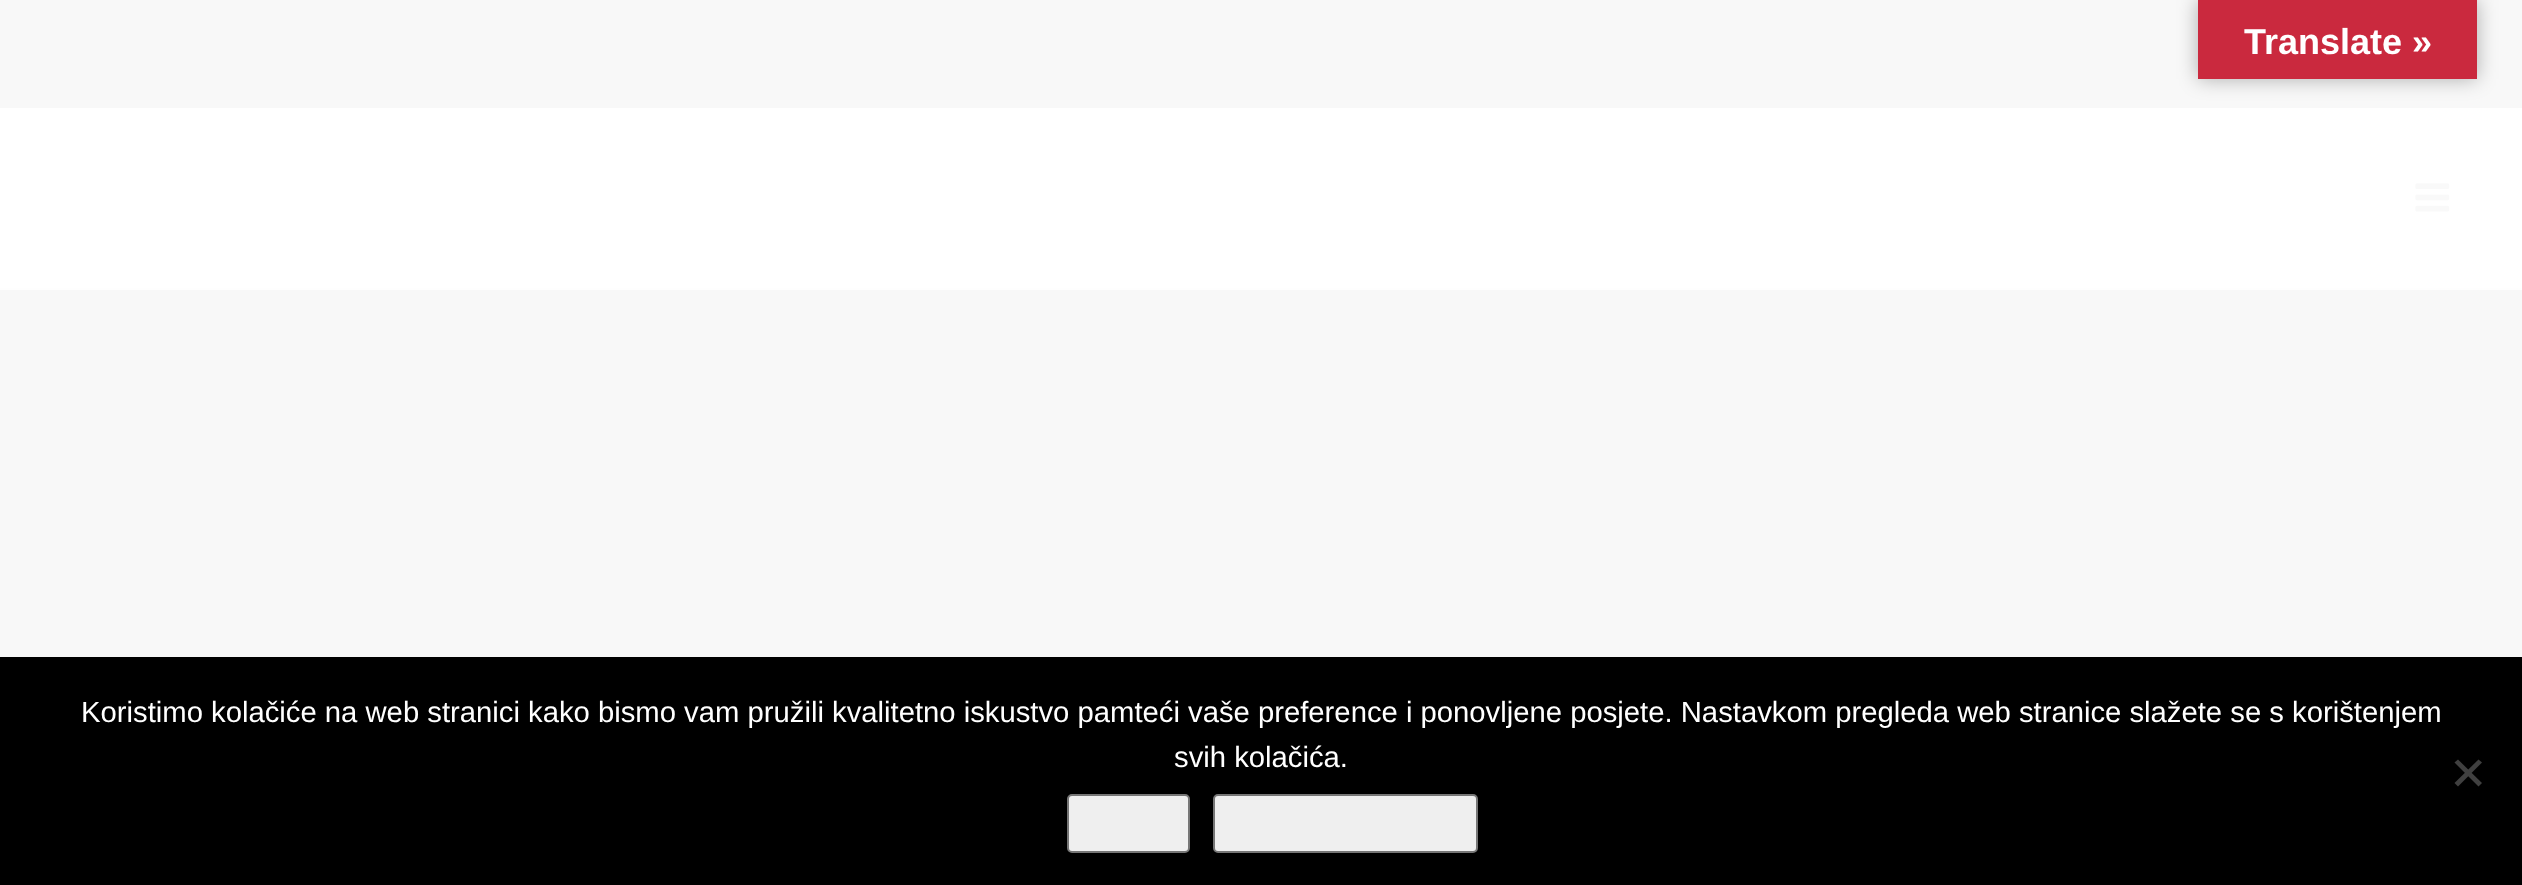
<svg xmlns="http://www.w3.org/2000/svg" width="2522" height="885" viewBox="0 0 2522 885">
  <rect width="100%" height="100%" fill="rgb(248,248,248)"/>
  <rect x="0" y="108" width="2522" height="180" fill="rgb(255,255,255)"/>
  <rect x="2198" y="0" width="279" height="79" fill="rgba(0,0,0,0.3)" filter="blur(10px)"/>
  <rect x="2198" y="0" width="279" height="79" fill="rgb(202,41,62)"/>
  <text x="2244" y="54" font-family="Liberation Sans" font-size="36" font-weight="bold" fill="rgb(255,255,255)">Translate »</text>
  <rect x="0" y="288" width="2522" height="2" fill="rgb(254,254,254)"/>
  <image x="2415" y="183" width="35" height="29" href="pic1.png"/>
  <rect x="0" y="657" width="2522" height="228" fill="rgb(0,0,0)"/>
  <g font-family="Liberation Sans" font-size="29.25" fill="rgb(255,255,255)">
    <text x="81" y="722">Koristimo kolačiće na web stranici kako bismo vam pružili kvalitetno iskustvo pamteći vaše preference i ponovljene posjete. Nastavkom pregleda web stranice slažete se s korištenjem</text>
    <text x="1174" y="767">svih kolačića.</text>
  </g>
  <path d="M2478.5 759.5L2482 762.5L2458 786.5L2454.5 783Z" fill="rgb(64,64,64)"/>
  <path d="M2454.5 762.5L2458 759.5L2482 783L2478.5 786.5Z" fill="rgb(64,64,64)"/>
  <rect x="1068" y="795" width="121" height="57" rx="4" fill="rgb(239,239,239)" stroke="rgb(118,118,118)" stroke-width="2"/>
  <rect x="1214" y="795" width="263" height="57" rx="4" fill="rgb(239,239,239)" stroke="rgb(118,118,118)" stroke-width="2"/>
</svg>
